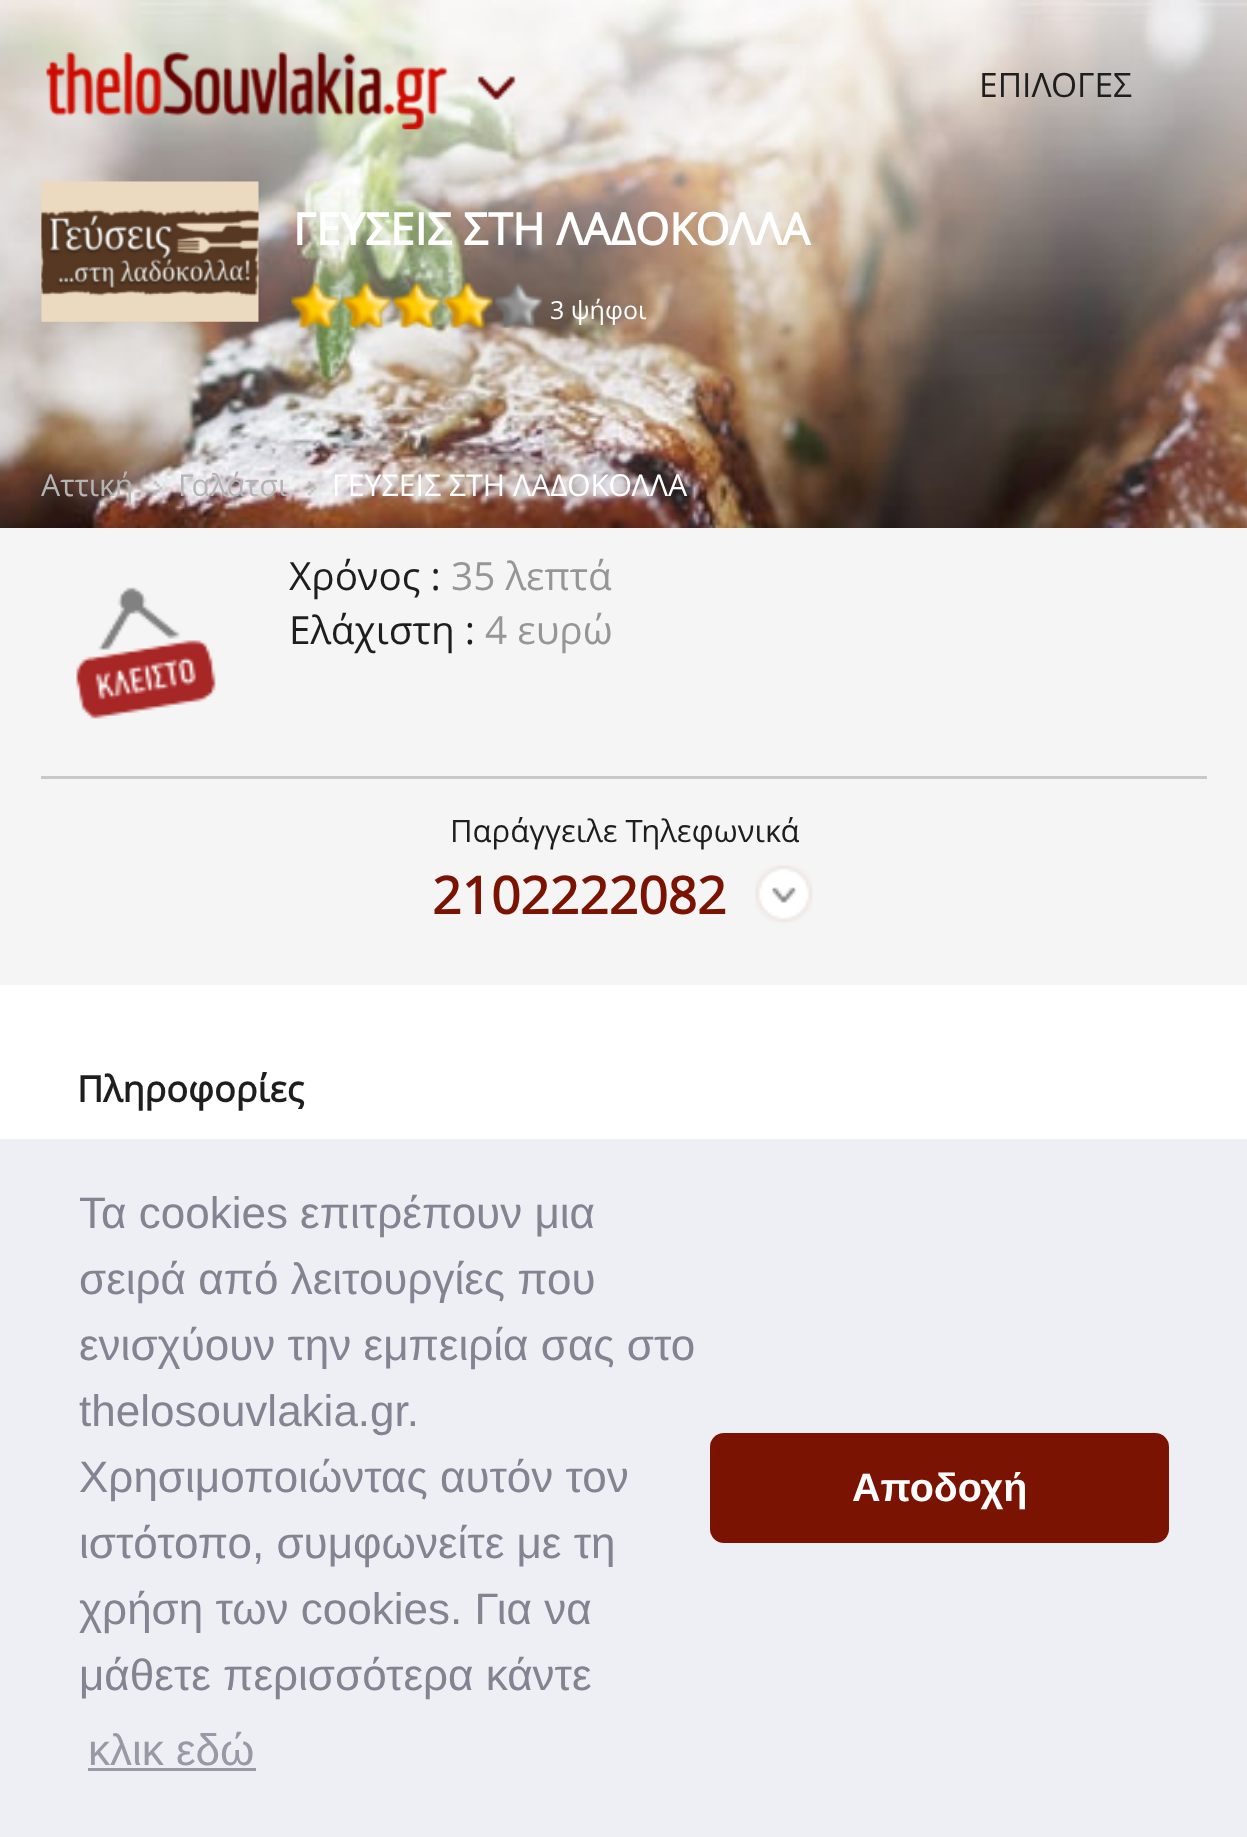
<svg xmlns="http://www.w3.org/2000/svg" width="1247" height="1837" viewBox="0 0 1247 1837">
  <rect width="100%" height="100%" fill="rgb(255,255,255)"/>
  <image x="0" y="0" width="1247" height="528" href="pic1.png"/>
  <image x="46" y="52" width="402" height="78" href="pic2.png"/>
  <image x="477" y="76" width="39" height="24" href="pic3.png"/>
  <text x="979" y="97" font-family="Open Sans" font-size="33.5" fill="rgb(30,30,30)">ΕΠΙΛΟΓΕΣ</text>
  <image x="41" y="181" width="218" height="141" href="pic4.png"/>
  <text x="293" y="245" font-family="Open Sans" font-size="44" font-weight="bold" fill="rgb(255,255,255)">ΓΕΥΣΕΙΣ ΣΤΗ ΛΑΔΟΚΟΛΛΑ</text>
  <image x="291" y="282" width="251" height="47" href="pic5.png"/>
  <text x="550" y="319" font-family="Open Sans" font-size="25" fill="rgb(255,255,255)">3 ψήφοι</text>
  <image x="153" y="480" width="10" height="16" href="pic6.png"/>
  <text x="41" y="496" font-family="Open Sans" font-size="30.25" fill="rgb(180,180,180)">Αττική</text>
  <image x="307" y="480" width="10" height="16" href="pic7.png"/>
  <text x="178" y="496" font-family="Open Sans" font-size="30.25" fill="rgb(180,180,180)">Γαλάτσι</text>
  <text x="332" y="496" font-family="Open Sans" font-size="30.25" fill="rgb(255,255,255)">ΓΕΥΣΕΙΣ ΣΤΗ ΛΑΔΟΚΟΛΛΑ</text>
  <rect x="0" y="528" width="1247" height="457" fill="rgb(245,245,245)"/>
  <text x="289" y="590" font-family="Open Sans" font-size="38.75" fill="rgb(30,30,30)">Χρόνος :</text>
  <text x="451" y="590" font-family="Open Sans" font-size="38.75" fill="rgb(150,150,150)">35 λεπτά</text>
  <image x="76" y="587" width="140" height="132" href="pic8.png"/>
  <text x="289" y="644" font-family="Open Sans" font-size="38.75" fill="rgb(30,30,30)">Ελάχιστη :</text>
  <text x="485" y="644" font-family="Open Sans" font-size="38.75" fill="rgb(150,150,150)">4 ευρώ</text>
  <rect x="41" y="776" width="1166" height="3" fill="rgb(200,200,200)"/>
  <text x="450" y="842" font-family="Open Sans" font-size="31" fill="rgb(30,30,30)">Παράγγειλε Τηλεφωνικά</text>
  <text x="432" y="914" font-family="Open Sans" font-size="51.5" font-weight="bold" fill="rgb(122,19,2)">2102222082</text>
  <image x="755" y="865" width="58" height="58" href="pic9.png"/>
  <text x="77" y="1102" font-family="Open Sans" font-size="36" font-weight="bold" fill="rgb(30,30,30)">Πληροφορίες</text>
  <rect x="0" y="1139" width="1247" height="698" fill="rgb(237,239,245)"/>
  <g font-family="Liberation Sans" font-size="44" fill="rgb(131,131,145)">
    <text>
      <tspan x="79" y="1228">Τα cookies επιτρέπουν μια</tspan>
      <tspan x="79" y="1294">σειρά από λειτουργίες που</tspan>
      <tspan x="79" y="1360">ενισχύουν την εμπειρία σας στο</tspan>
      <tspan x="79" y="1426">thelosouvlakia.gr.</tspan>
      <tspan x="79" y="1492">Χρησιμοποιώντας αυτόν τον</tspan>
      <tspan x="79" y="1558">ιστότοπο, συμφωνείτε με τη</tspan>
      <tspan x="79" y="1624">χρήση των cookies. Για να</tspan>
      <tspan x="79" y="1690">μάθετε περισσότερα κάντε</tspan>
    </text>
  </g>
  <text x="88" y="1765" font-family="Liberation Sans" font-size="44" fill="rgb(152,153,165)">κλικ εδώ</text>
  <rect x="88" y="1768" width="168" height="3" fill="rgb(152,153,165)"/>
  <rect x="710" y="1433" width="459" height="110" rx="14" fill="rgb(122,19,2)"/>
  <text x="852" y="1501" font-family="Liberation Sans" font-size="39.5" font-weight="bold" fill="rgb(255,255,255)">Αποδοχή</text>
</svg>
